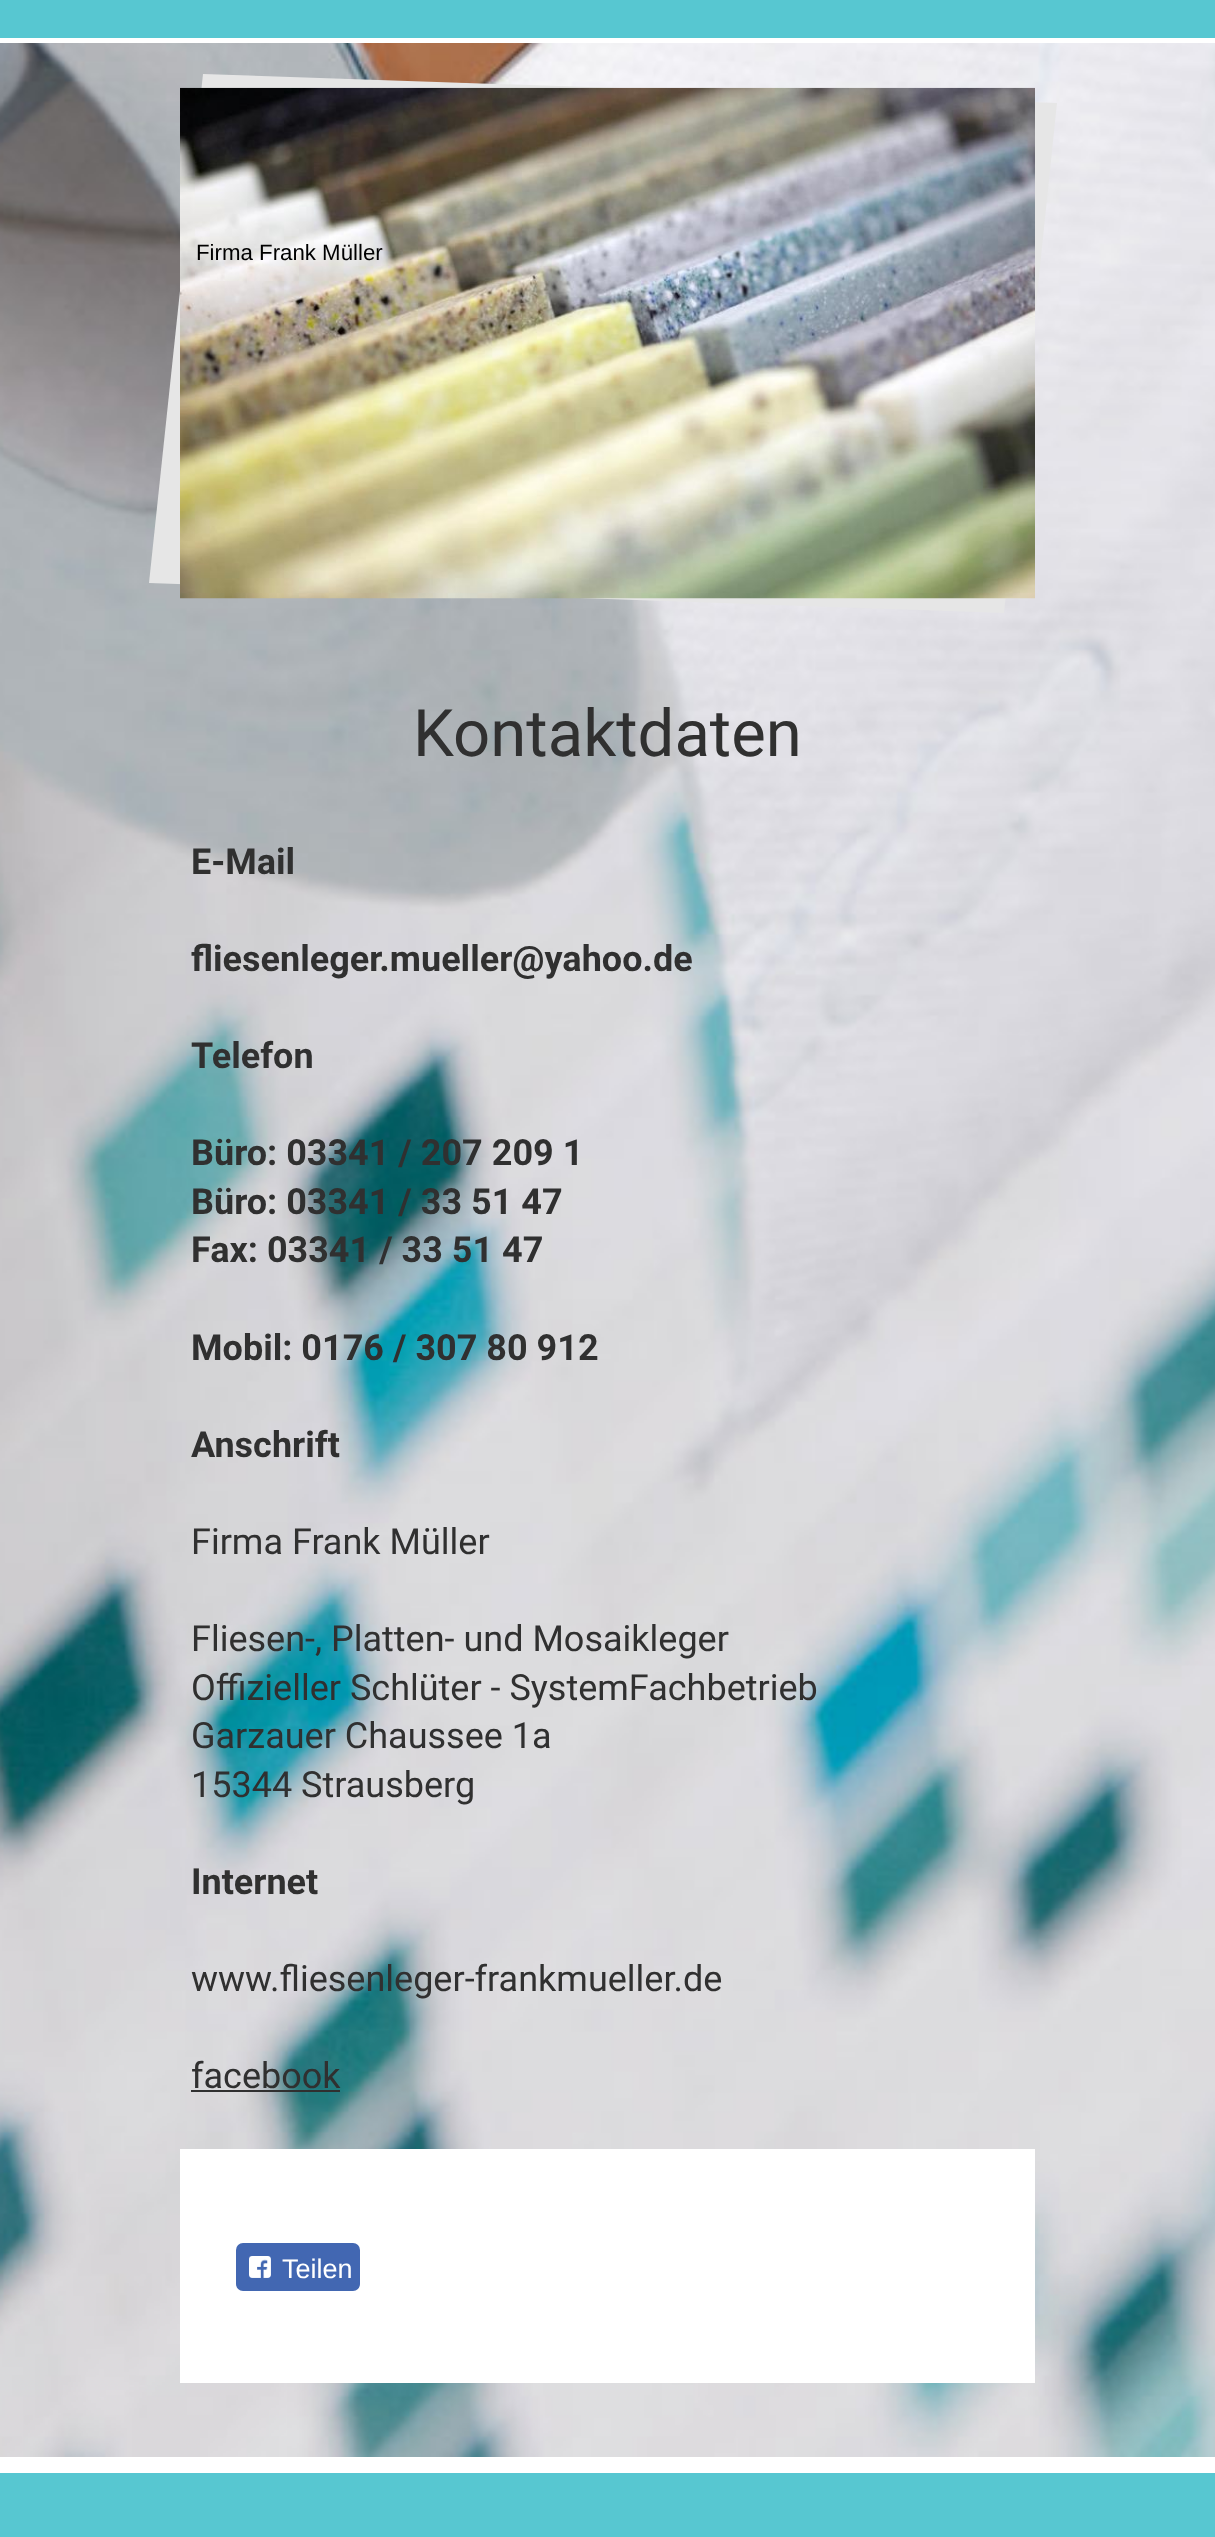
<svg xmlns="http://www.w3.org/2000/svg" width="1215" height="2537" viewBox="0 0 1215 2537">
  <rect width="100%" height="100%" fill="rgb(255,255,255)"/>
  <image x="0" y="43" width="1215" height="2414" href="pic1.png"/>
  <rect x="0" y="0" width="1215" height="38" fill="rgb(87,199,209)"/>
  <path d="M203 74L1057 103L1004 613L149 583Z" fill="rgb(230,230,230)"/>
  <image x="180" y="87" width="855" height="512" href="pic2.png"/>
  <text x="196" y="260" font-family="Liberation Sans" font-size="22.25" fill="rgb(0,0,0)">Firma Frank Müller</text>
  <text x="413" y="756" font-family="Roboto" font-size="65.25" fill="rgb(48,48,48)">Kontaktdaten</text>
  <g font-family="Roboto" font-size="36" font-weight="bold" fill="rgb(48,48,48)">
    <text x="191" y="874">E-Mail</text>
    <text x="191" y="971">fliesenleger.mueller@yahoo.de</text>
    <text x="191" y="1068">Telefon</text>
    <text>
      <tspan x="191" y="1165">Büro: 03341 / 207 209 1</tspan>
      <tspan x="191" y="1214">Büro: 03341 / 33 51 47</tspan>
      <tspan x="191" y="1262">Fax: 03341 / 33 51 47</tspan>
    </text>
    <text x="191" y="1360">Mobil: 0176 / 307 80 912</text>
    <text x="191" y="1457">Anschrift</text>
  </g>
  <g font-family="Roboto" font-size="36" fill="rgb(48,48,48)">
    <text x="191" y="1554">Firma Frank Müller</text>
    <text>
      <tspan x="191" y="1651">Fliesen-, Platten- und Mosaikleger</tspan>
      <tspan x="191" y="1700">Offizieller Schlüter - SystemFachbetrieb</tspan>
      <tspan x="191" y="1748">Garzauer Chaussee 1a</tspan>
      <tspan x="191" y="1797">15344 Strausberg</tspan>
    </text>
  </g>
  <text x="191" y="1894" font-family="Roboto" font-size="36" font-weight="bold" fill="rgb(48,48,48)">Internet</text>
  <g font-family="Roboto" font-size="36" fill="rgb(48,48,48)">
    <text x="191" y="1991">www.fliesenleger-frankmueller.de</text>
    <text x="191" y="2088">facebook</text>
  </g>
  <rect x="191" y="2090" width="149" height="2" fill="rgb(48,48,48)"/>
  <rect x="180" y="2149" width="855" height="234" fill="rgb(255,255,255)"/>
  <rect x="236" y="2243" width="124" height="48" rx="7" fill="rgb(66,103,178)"/>
  <image x="249" y="2256" width="22" height="22" href="pic3.png"/>
  <text x="282" y="2278" font-family="Liberation Sans" font-size="27" fill="rgb(255,255,255)">Teilen</text>
  <rect x="0" y="2473" width="1215" height="64" fill="rgb(87,199,209)"/>
</svg>
